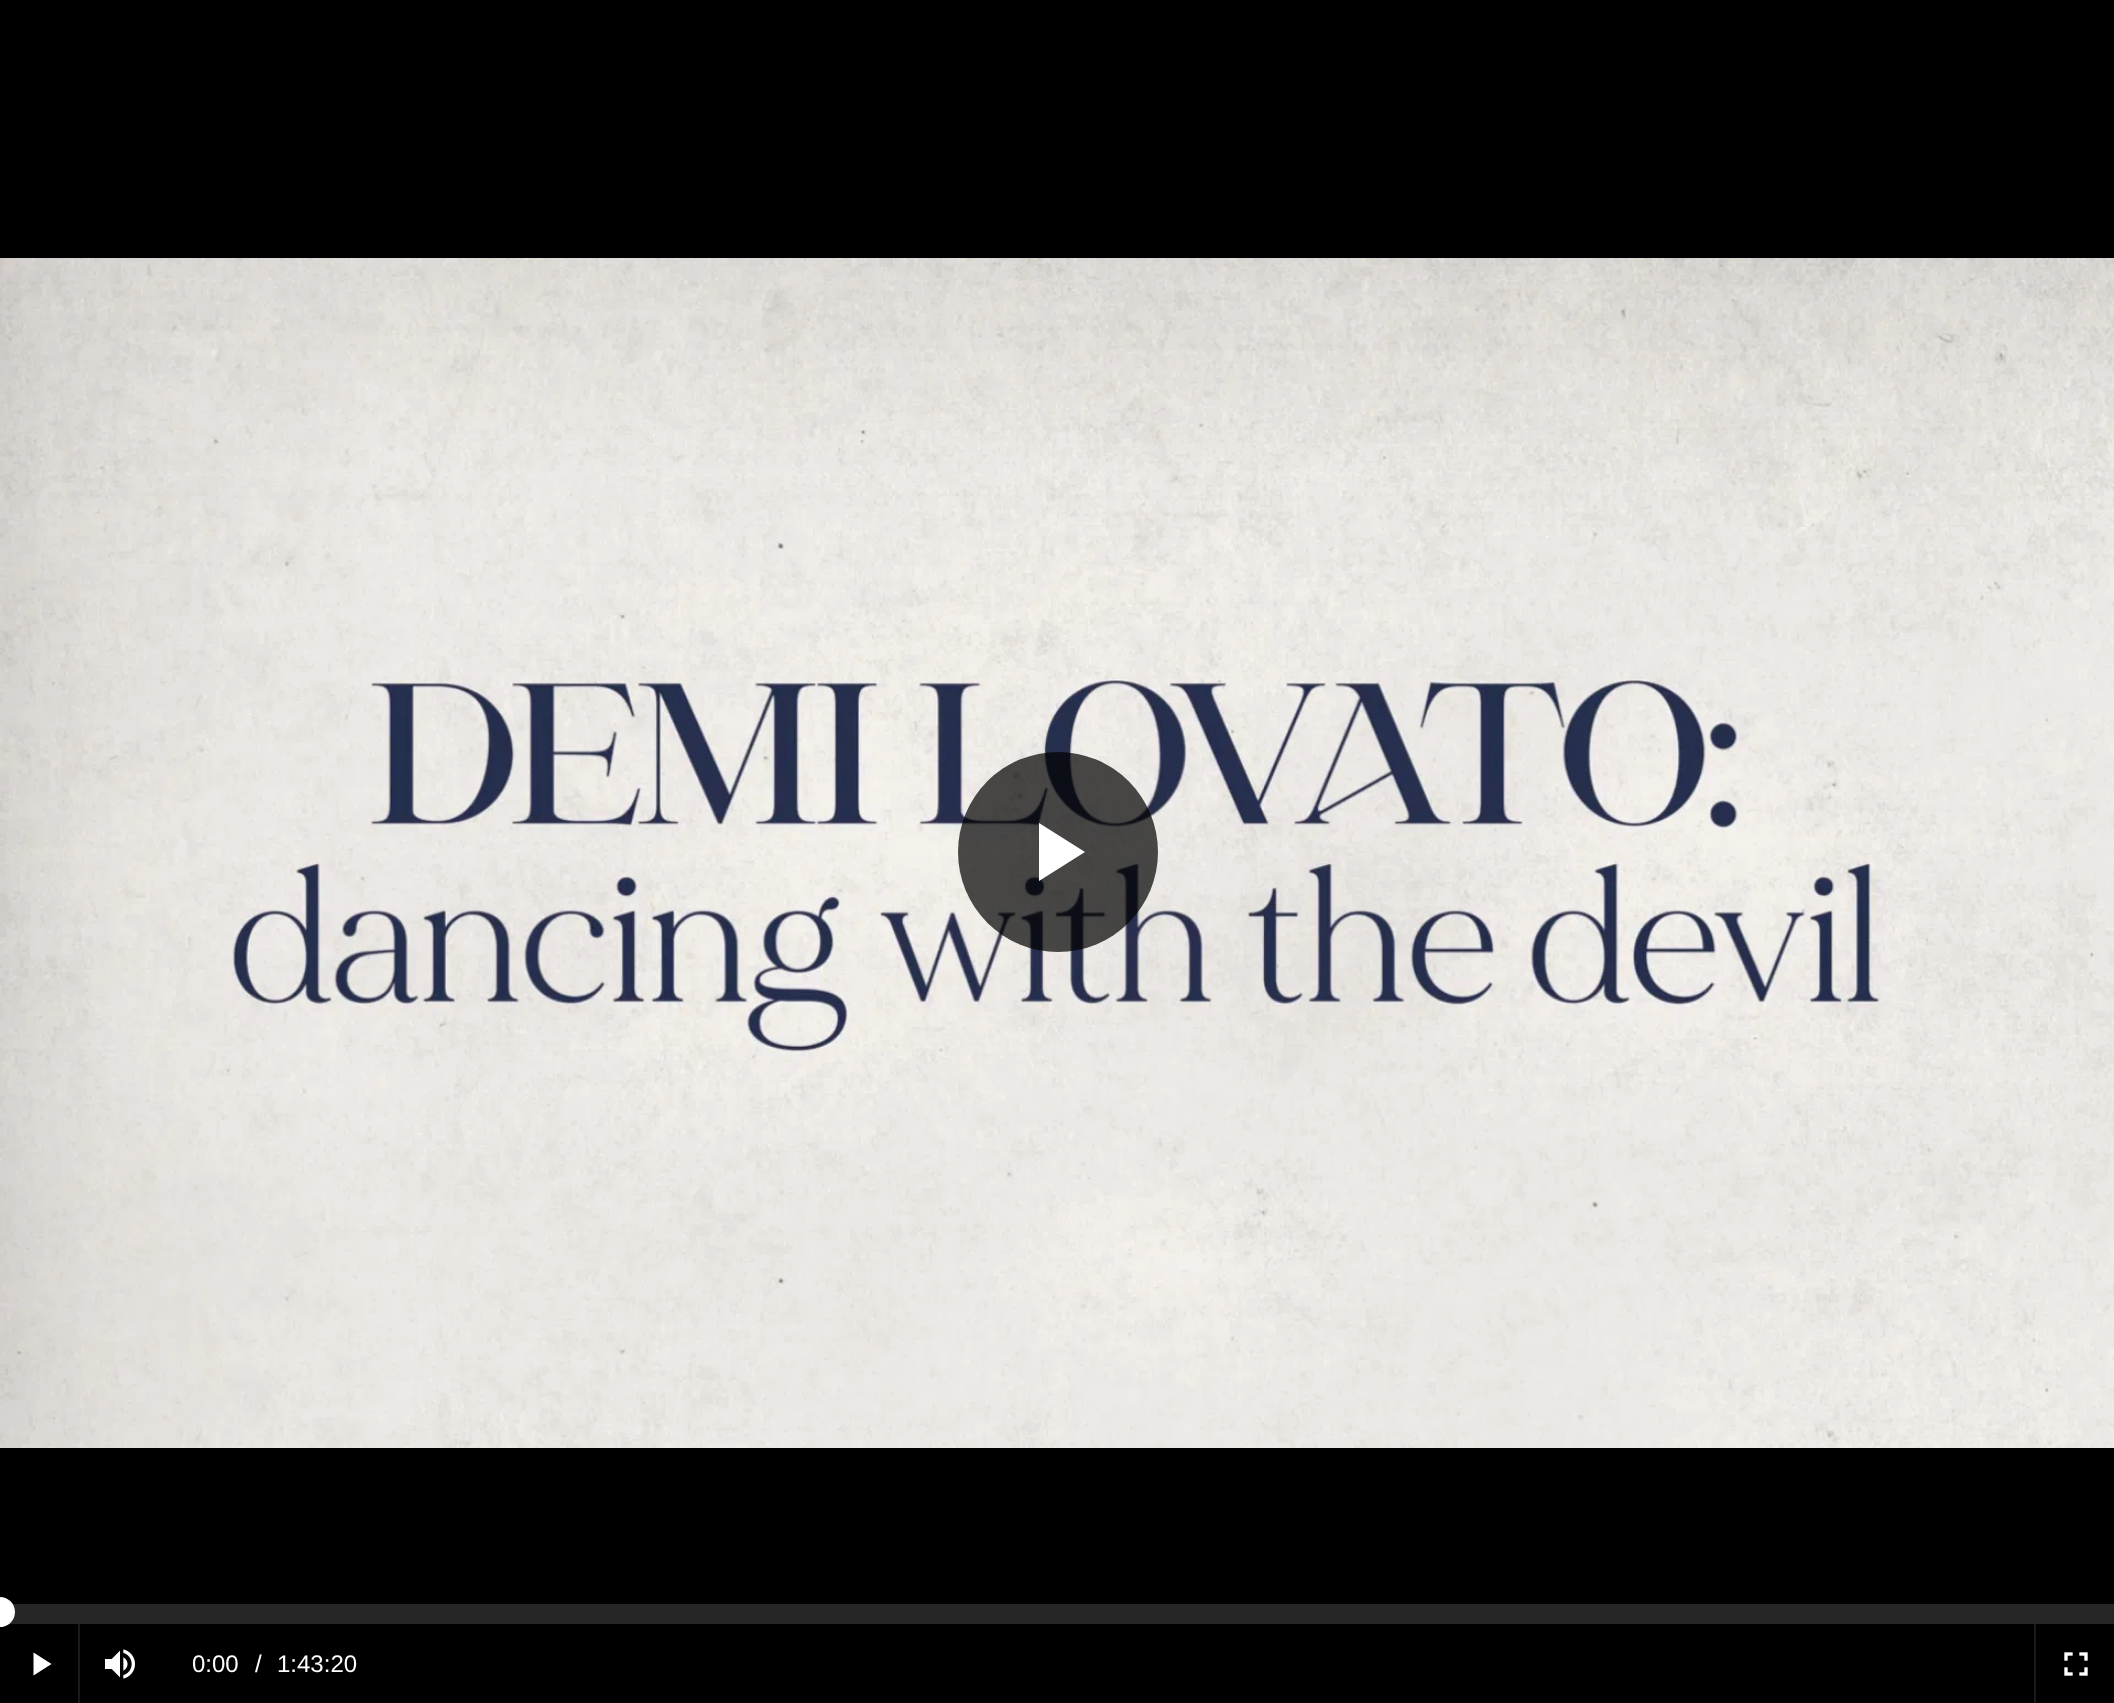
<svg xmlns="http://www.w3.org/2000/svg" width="2114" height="1703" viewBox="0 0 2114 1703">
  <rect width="100%" height="100%" fill="rgb(0,0,0)"/>
  <image x="0" y="258" width="2114" height="1190" href="pic1.png"/>
  <circle cx="1058" cy="852" r="100" fill="rgba(0,0,0,0.7)"/>
  <path d="M1039 823V881L1085 852Z" fill="rgb(255,255,255)"/>
  <rect x="9" y="1604" width="2105" height="20" fill="rgb(38,38,38)"/>
  <path d="M-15 1612C-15 1626.5 3.5 1632.5 12 1621C14 1618.5 15 1615 15 1612C15 1597.5-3.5 1591.5-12 1603C-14 1605.5-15 1609-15 1612Z" fill="rgb(255,255,255)"/>
  <rect x="78" y="1624" width="2" height="79" fill="rgb(26,26,26)"/>
  <path d="M33.5 1652.5V1675.5L51.5 1664Z" fill="rgb(255,255,255)"/>
  <image x="105" y="1649" width="30" height="30" href="pic2.png"/>
  <g font-family="Liberation Sans" font-size="24" fill="rgb(255,255,255)">
    <text x="192" y="1672">0:00</text>
    <text x="255" y="1672">/</text>
    <text x="277" y="1672">1:43:20</text>
  </g>
  <rect x="2034" y="1624" width="2" height="79" fill="rgb(26,26,26)"/>
  <image x="2064" y="1652" width="24" height="24" href="pic3.png"/>
</svg>
